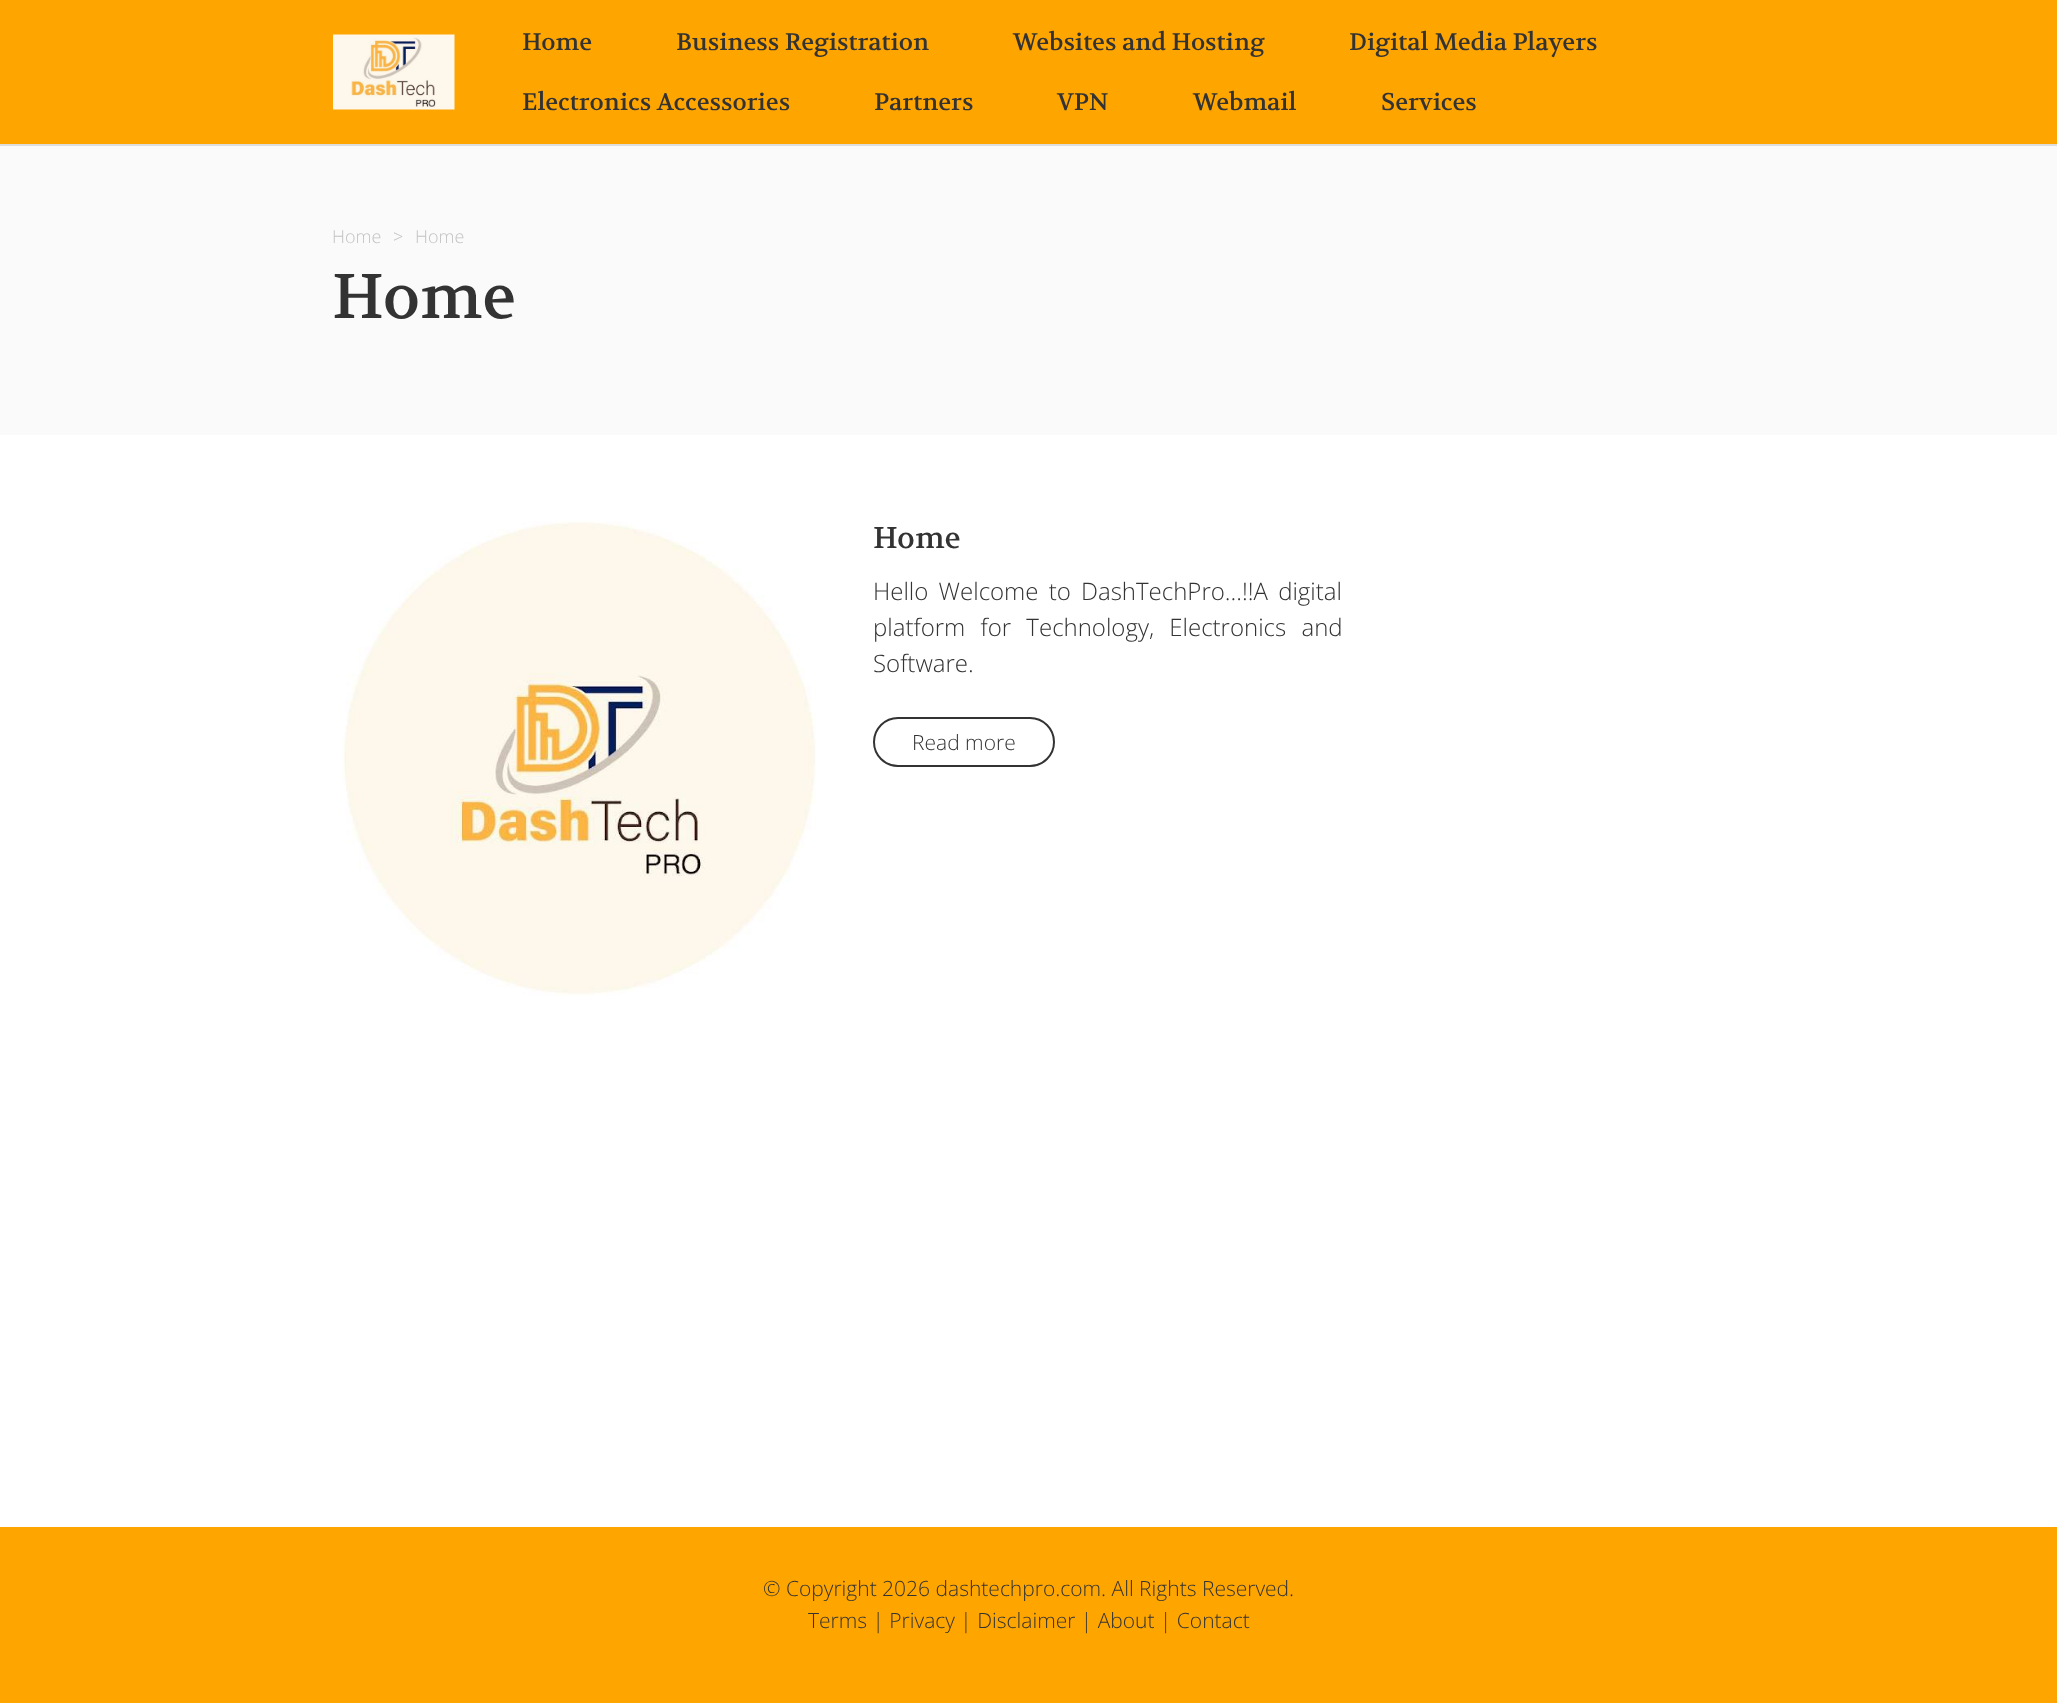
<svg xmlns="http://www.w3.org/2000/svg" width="2057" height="1703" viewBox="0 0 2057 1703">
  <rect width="100%" height="100%" fill="rgb(255,255,255)"/>
  <rect x="0" y="0" width="2057" height="144" fill="rgb(255,165,0)"/>
  <rect x="0" y="144" width="2057" height="2" fill="rgb(221,221,221)"/>
  <image x="333" y="34" width="122" height="76" href="pic1.png"/>
  <g font-family="Volkhov" font-size="24" fill="rgb(51,51,51)">
    <text x="522" y="50">Home</text>
    <text x="676" y="50">Business Registration</text>
    <text x="1013" y="50">Websites and Hosting</text>
    <text x="1349" y="50">Digital Media Players</text>
    <text x="522" y="110">Electronics Accessories</text>
    <text x="874" y="110">Partners</text>
    <text x="1057" y="110">VPN</text>
    <text x="1193" y="110">Webmail</text>
    <text x="1381" y="110">Services</text>
  </g>
  <rect x="0" y="146" width="2057" height="289" fill="rgb(250,250,250)"/>
  <g font-family="Open Sans" font-size="18" font-weight="300" fill="rgb(195,195,195)">
    <text x="332" y="243">Home</text>
    <text x="393" y="243">&gt;</text>
    <text x="415" y="243">Home</text>
  </g>
  <text x="332" y="318" font-family="Volkhov" font-size="63" fill="rgb(51,51,51)">Home</text>
  <image x="342" y="521" width="474" height="475" href="pic2.png"/>
  <text x="873" y="548" font-family="Volkhov" font-size="30" fill="rgb(51,51,51)">Home</text>
  <g font-family="Open Sans" font-size="24" font-weight="300" fill="rgb(51,51,51)">
    <text x="873" y="600" word-spacing="4">Hello Welcome to</text>
    <text x="1081" y="600" word-spacing="4">DashTechPro…!!A digital</text>
    <text>
      <tspan x="873" y="636" word-spacing="9">platform for Technology, Electronics and</tspan>
      <tspan x="873" y="672">Software.</tspan>
    </text>
  </g>
  <rect x="874" y="718" width="180" height="48" rx="24" fill="none" stroke="rgb(51,51,51)" stroke-width="2"/>
  <text x="912" y="750" font-family="Open Sans" font-size="21" font-weight="300" fill="rgb(51,51,51)">Read more</text>
  <rect x="0" y="1527" width="2057" height="176" fill="rgb(255,165,0)"/>
  <g font-family="Open Sans" font-size="21" font-weight="300" fill="rgb(51,51,51)">
    <text x="763" y="1596">© Copyright 2026 dashtechpro.com. All Rights Reserved.</text>
    <text x="808" y="1628">Terms | Privacy | Disclaimer | About | Contact</text>
  </g>
</svg>
